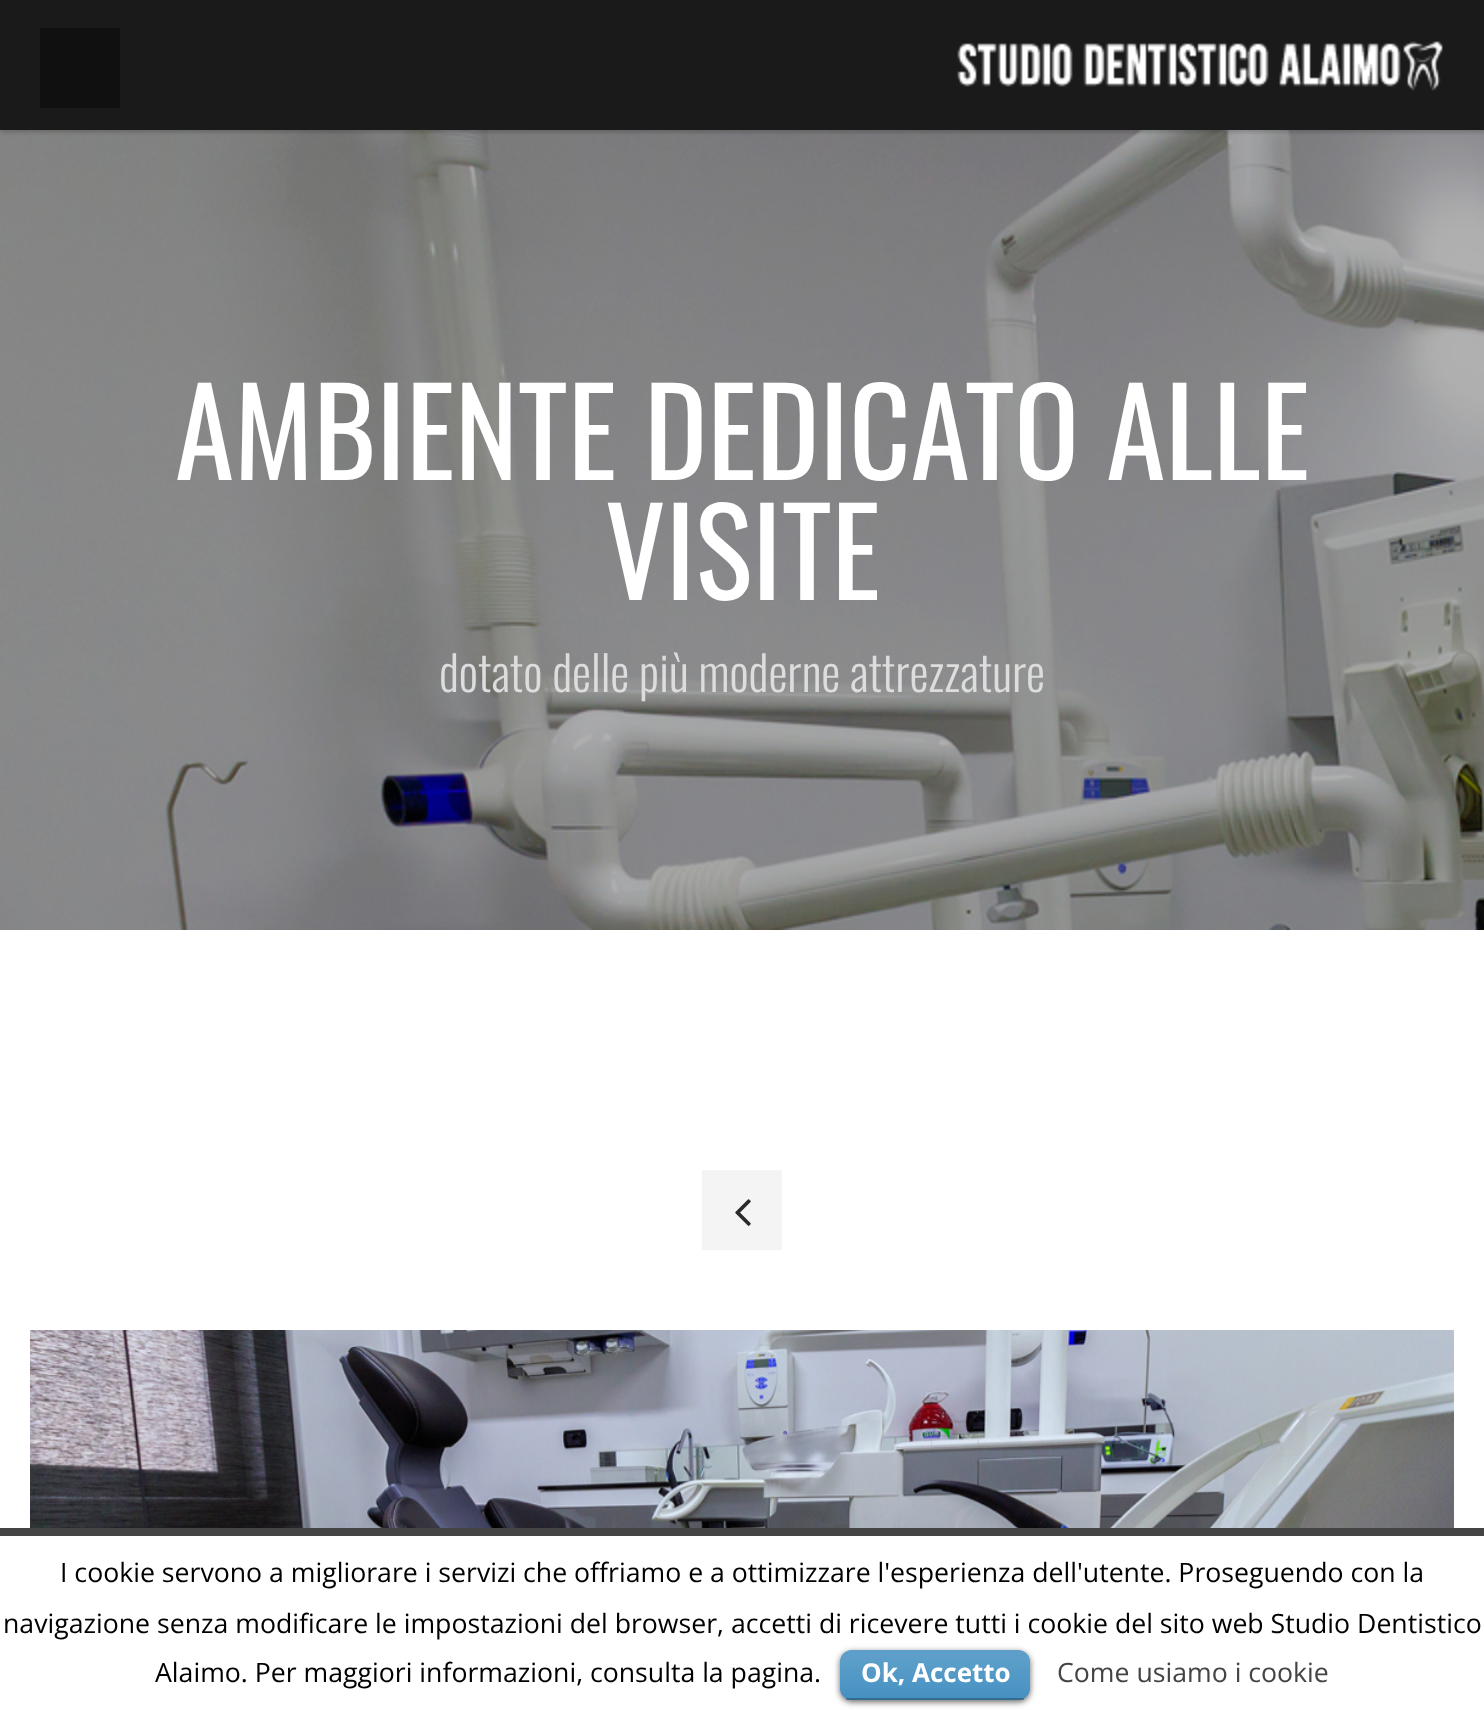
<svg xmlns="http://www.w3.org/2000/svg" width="1484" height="1710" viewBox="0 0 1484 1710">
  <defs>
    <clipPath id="clip1"><rect x="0" y="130" width="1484" height="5"/></clipPath>
  </defs>
  <rect width="100%" height="100%" fill="rgb(26,26,26)"/>
  <image x="0" y="130" width="1484" height="800" href="pic2.png"/>
  <g clip-path="url(#clip1)">
    <rect x="2" y="2" width="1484" height="130" fill="rgba(0,0,0,0.2)" filter="blur(2px)"/>
  </g>
  <image x="957" y="41" width="486" height="50" href="pic1.png"/>
  <rect x="40" y="28" width="80" height="80" fill="rgb(16,16,16)"/>
  <g font-family="Oswald" font-size="120" fill="rgb(255,255,255)">
    <text x="175" y="480">AMBIENTE DEDICATO ALLE</text>
    <text x="605" y="600">VISITE</text>
  </g>
  <text x="439" y="692" font-family="Oswald" font-size="48" font-weight="300" fill="rgb(221,221,221)">dotato delle più moderne attrezzature</text>
  <rect x="0" y="930" width="1484" height="598" fill="rgb(255,255,255)"/>
  <rect x="702" y="1170" width="80" height="80" fill="rgb(244,244,244)"/>
  <image x="735" y="1199" width="16" height="27" href="pic3.png"/>
  <image x="30" y="1330" width="1424" height="198" href="pic4.png"/>
  <rect x="0" y="1536" width="1484" height="174" fill="rgb(255,255,255)"/>
  <rect x="0" y="1528" width="1484" height="8" fill="rgb(68,68,68)"/>
  <g font-family="Open Sans" font-size="26.67" fill="rgb(0,0,0)">
    <text x="60" y="1582">I cookie servono a migliorare i servizi che offriamo e a ottimizzare l'esperienza dell'utente. Proseguendo con la</text>
    <text x="3" y="1633">navigazione senza modificare le impostazioni del browser, accetti di ricevere tutti i cookie del sito web Studio Dentistico</text>
    <text x="155" y="1682">Alaimo. Per maggiori informazioni, consulta la pagina.</text>
  </g>
  <rect x="840" y="1652" width="190" height="50" rx="12" fill="rgba(0,0,0,0.6)" filter="blur(3px)"/>
  <rect x="840" y="1650" width="190" height="50" rx="12" fill="rgb(41,128,185)"/>
  <image x="840" y="1650" width="190" height="50" href="pic5.png"/>
  <rect x="846" y="1698" width="178" height="2" fill="rgba(0,0,0,0.25)"/>
  <text x="861" y="1682" font-family="Open Sans" font-size="26" font-weight="bold" fill="rgb(255,255,255)">Ok, Accetto</text>
  <text x="1057" y="1682" font-family="Open Sans" font-size="26.67" fill="rgb(68,68,68)">Come usiamo i cookie</text>
</svg>
